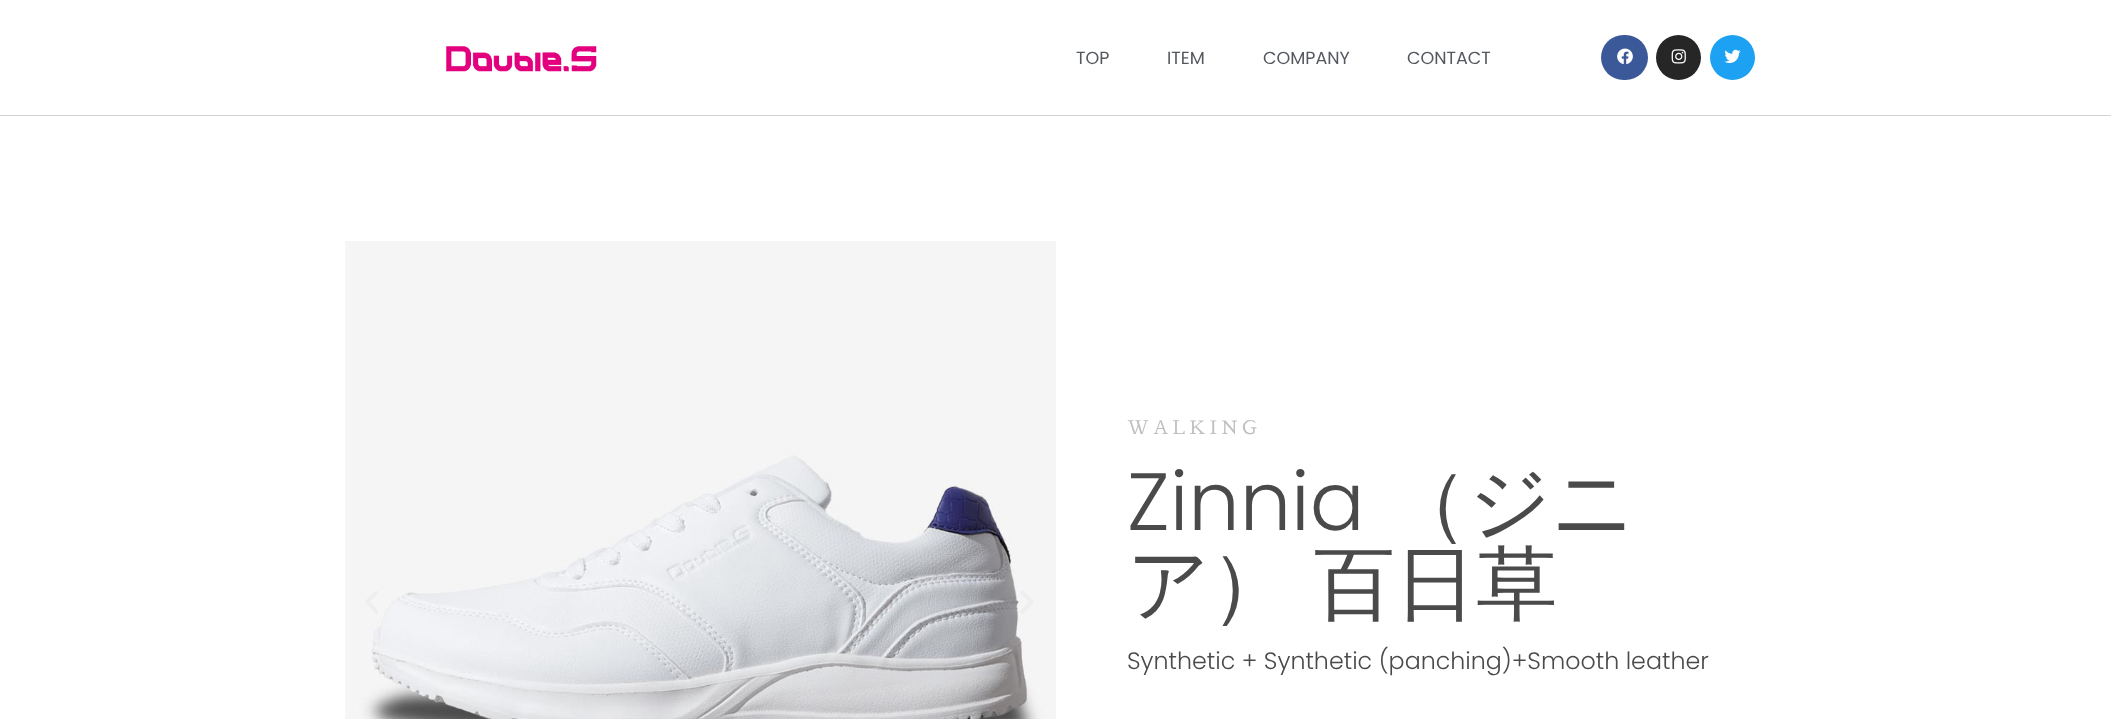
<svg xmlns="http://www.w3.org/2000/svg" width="2111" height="719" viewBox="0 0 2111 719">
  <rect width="100%" height="100%" fill="rgb(255,255,255)"/>
  <rect x="0" y="115" width="2111" height="1" fill="rgb(211,211,211)"/>
  <image x="446" y="46" width="151" height="26" href="pic1.png"/>
  <g font-family="Poppins" font-size="17.5" fill="rgb(84,89,95)">
    <text x="1076" y="64">TOP</text>
    <text x="1167" y="64">ITEM</text>
    <text x="1263" y="64">COMPANY</text>
    <text x="1407" y="64">CONTACT</text>
  </g>
  <rect x="1601" y="35" width="47" height="45" rx="22.5" fill="rgb(59,89,152)"/>
  <image x="1617" y="48" width="16" height="17" href="pic2.png"/>
  <circle cx="1678.5" cy="57.5" r="22.5" fill="rgb(38,38,38)"/>
  <image x="1671" y="49" width="15" height="15" href="pic3.png"/>
  <circle cx="1732.5" cy="57.5" r="22.5" fill="rgb(29,161,242)"/>
  <image x="1724" y="49" width="17" height="14" href="pic4.png"/>
  <image x="345" y="241" width="711" height="478" href="pic5.png"/>
  <image x="365" y="591" width="13" height="23" href="pic6.png"/>
  <image x="1020" y="591" width="13" height="23" href="pic7.png"/>
  <text x="1127" y="434" font-family="Sawarabi Mincho" font-size="18.75" letter-spacing="3.75" fill="rgb(191,191,191)">WALKING</text>
  <text x="1127" y="530" font-family="Poppins" font-size="81.25" font-weight="300" fill="rgb(74,74,74)">Zinnia</text>
  <g font-family="WenQuanYi Zen Hei" font-size="81.25" font-weight="500" fill="rgb(74,74,74)">
    <text x="1387" y="530">（ジニ</text>
    <text x="1127" y="612" word-spacing="-2">ア） 百日草</text>
  </g>
  <text x="1127" y="669" font-family="Poppins" font-size="23.75" font-weight="300" fill="rgb(74,74,74)">Synthetic + Synthetic (panching)+Smooth leather</text>
</svg>
